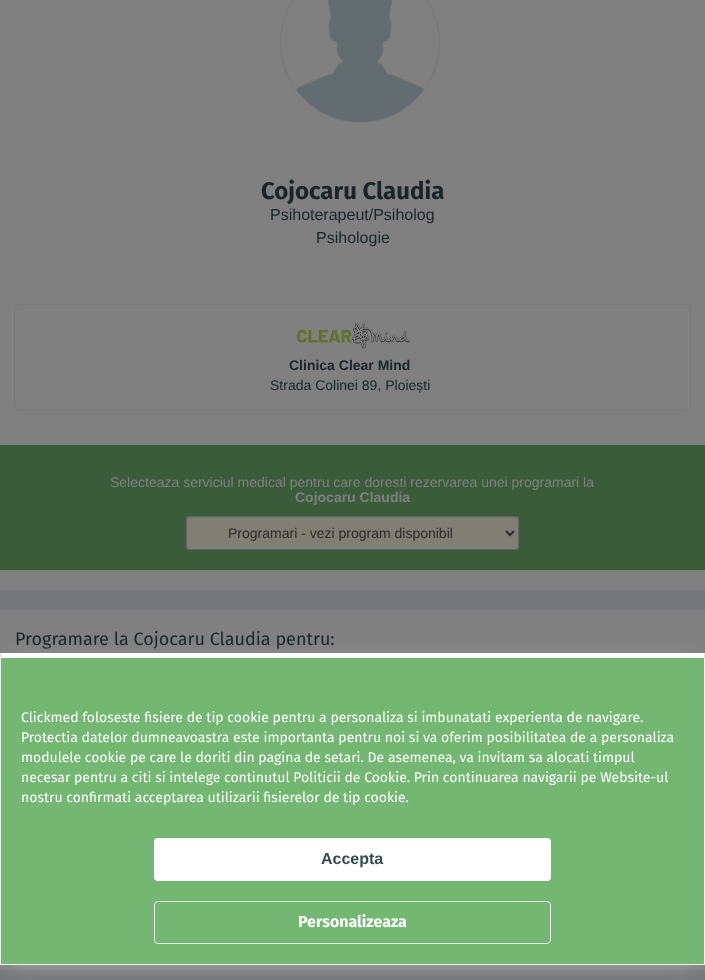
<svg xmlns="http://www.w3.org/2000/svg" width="705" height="980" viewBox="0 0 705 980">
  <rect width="100%" height="100%" fill="rgb(118,119,122)"/>
  <rect x="0" y="0" width="705" height="590" fill="rgb(128,128,128)"/>
  <circle cx="360" cy="43" r="79.5" fill="none" stroke="rgb(121,121,121)"/>
  <image x="296" y="0" width="128" height="122" href="pic1.png"/>
  <text x="261" y="199" font-family="Fira Sans" font-size="24" font-weight="bold" fill="rgb(25,37,40)">Cojocaru Claudia</text>
  <g font-family="Liberation Sans" font-size="16" fill="rgb(25,37,40)">
    <text x="270" y="220">Psihoterapeut/Psiholog</text>
    <text x="316" y="243">Psihologie</text>
  </g>
  <image x="297" y="322" width="114" height="27" href="pic2.png"/>
  <rect x="14.5" y="304.5" width="676" height="106" rx="5.5" fill="none" stroke="rgb(121,121,121)"/>
  <text x="289" y="370" font-family="Liberation Sans" font-size="14" font-weight="bold" fill="rgb(25,37,40)">Clinica Clear Mind</text>
  <text x="270" y="390" font-family="Liberation Sans" font-size="14" fill="rgb(25,37,40)">Strada Colinei 89, Ploiești</text>
  <rect x="0" y="445" width="705" height="125" fill="rgb(58,92,58)"/>
  <text x="110" y="487" font-family="Liberation Sans" font-size="14" fill="rgb(128,128,128)">Selecteaza serviciul medical pentru care doresti rezervarea unei programari la</text>
  <text x="295" y="502" font-family="Liberation Sans" font-size="14" font-weight="bold" fill="rgb(128,128,128)">Cojocaru Claudia</text>
  <rect x="186" y="516" width="333" height="34" rx="4" fill="rgb(128,127,115)"/>
  <path d="M190 518H515C517 518 518 519 518 521C518 519 517 517 515 517H190C188 517 187 519 187 521C187 519 188 518 190 518Z" fill="rgb(118,118,107)"/>
  <rect x="186.5" y="516.5" width="332" height="33" rx="3.5" fill="none" stroke="rgb(102,102,102)"/>
  <path d="M506 531L510 535L514 531" fill="none" stroke="rgb(43,43,43)" stroke-width="2"/>
  <text x="228" y="538" font-family="Liberation Sans" font-size="14" fill="rgb(43,43,43)">Programari - vezi program disponibil</text>
  <rect x="0" y="610" width="705" height="360" fill="rgb(128,128,128)"/>
  <text x="15" y="645" font-family="Fira Sans" font-size="18" fill="rgb(25,37,40)">Programare la Cojocaru Claudia pentru:</text>
  <rect x="8" y="666" width="689" height="296" fill="rgb(178,178,178)" filter="blur(12.5px)"/>
  <rect x="1" y="658" width="703" height="306" fill="rgb(115,183,115)"/>
  <path d="M0 653H705L704 658H1Z" fill="rgb(255,255,255)"/>
  <path d="M705 653V965L704 964V658Z" fill="rgb(238,238,238)"/>
  <rect x="0" y="964" width="705" height="1" fill="rgb(238,238,238)"/>
  <path d="M0 965V653L1 658V964Z" fill="rgb(238,238,238)"/>
  <g font-family="Fira Sans" font-size="14" fill="rgb(255,255,255)">
    <text>
      <tspan x="21" y="722">Clickmed foloseste fisiere de tip cookie pentru a personaliza si imbunatati experienta de navigare.</tspan>
      <tspan x="21" y="742">Protectia datelor dumneavoastra este importanta pentru noi si va oferim posibilitatea de a personaliza</tspan>
      <tspan x="21" y="762">modulele cookie pe care le doriti din pagina de setari. De asemenea, va invitam sa alocati timpul</tspan>
      <tspan x="21" y="782">necesar pentru a citi si intelege continutul Politicii de Cookie. Prin continuarea navigarii pe Website-ul</tspan>
      <tspan x="21" y="802">nostru confirmati acceptarea utilizarii fisierelor de tip cookie.</tspan>
    </text>
  </g>
  <rect x="154" y="838" width="397" height="43" rx="4" fill="rgb(255,255,255)"/>
  <text x="321" y="864" font-family="Liberation Sans" font-size="16" font-weight="bold" fill="rgb(50,74,80)">Accepta</text>
  <rect x="154.5" y="901.5" width="396" height="42" rx="3.5" fill="none" stroke="rgb(238,238,238)"/>
  <text x="298" y="927" font-family="Fira Sans" font-size="16" font-weight="bold" fill="rgb(255,255,255)">Personalizeaza</text>
</svg>
